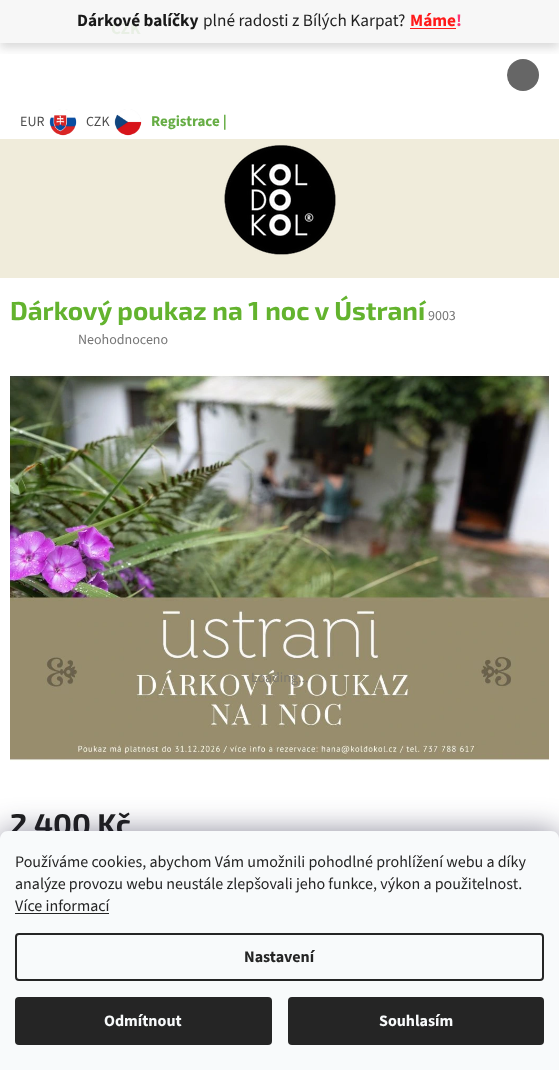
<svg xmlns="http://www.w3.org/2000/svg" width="559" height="1070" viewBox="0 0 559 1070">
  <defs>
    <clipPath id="clip1"><rect x="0" y="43" width="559" height="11"/></clipPath>
  </defs>
  <rect width="100%" height="100%" fill="rgb(255,255,255)"/>
  <rect x="0" y="0" width="559" height="43" fill="rgb(247,247,247)"/>
  <circle cx="523" cy="75" r="16" fill="rgb(102,102,102)"/>
  <g clip-path="url(#clip1)">
    <rect x="0" y="5" width="559" height="43" fill="rgba(26,26,26,0.16)" filter="blur(5px)"/>
  </g>
  <text x="111" y="34" font-family="'Source Sans 3'" font-size="17" font-weight="bold" fill="rgb(232,239,228)">CZK</text>
  <text x="77" y="26" font-family="'Source Sans 3'" font-size="17.25" font-weight="bold" fill="rgb(25,25,25)">Dárkové balíčky</text>
  <text x="203" y="26" font-family="'Source Sans 3'" font-size="17.25" fill="rgb(31,31,31)">plné radosti z Bílých Karpat?</text>
  <text x="410" y="26" font-family="'Source Sans 3'" font-size="17.25" font-weight="bold" fill="rgb(255,26,26)">Máme</text>
  <text x="456" y="26" font-family="'Source Sans 3'" font-size="17.25" font-weight="bold" fill="rgb(255,52,118)">!</text>
  <rect x="410" y="28" width="46" height="1" fill="rgb(255,26,26)"/>
  <text x="20" y="126" font-family="'Source Sans 3'" font-size="14" fill="rgb(77,77,77)">EUR</text>
  <image x="49" y="109" width="28" height="27" href="pic1.png"/>
  <text x="86" y="126" font-family="'Source Sans 3'" font-size="14" fill="rgb(77,77,77)">CZK</text>
  <image x="114" y="109" width="28" height="27" href="pic2.png"/>
  <text x="151" y="126" font-family="'Source Sans 3'" font-size="15" font-weight="bold" fill="rgb(102,173,68)">Registrace |</text>
  <rect x="0" y="139" width="559" height="139" fill="rgb(240,236,219)"/>
  <image x="224" y="145" width="112" height="110" href="pic3.png"/>
  <text x="10" y="320" font-family="'Exo 2'" font-size="26" font-weight="bold" fill="rgb(99,179,46)">Dárkový poukaz na 1 noc v Ústraní</text>
  <g font-family="'Source Sans 3'" font-size="14" fill="rgb(118,118,118)">
    <text x="428" y="320">9003</text>
    <text x="78" y="344">Neohodnoceno</text>
  </g>
  <image x="10" y="374" width="539" height="387" href="pic4.png"/>
  <text x="251" y="682" font-family="'Source Sans 3'" font-size="14" fill="rgb(126,122,110)">Loading...</text>
  <text x="10" y="835" font-family="'Exo 2'" font-size="30" font-weight="bold" fill="rgb(31,31,31)">2 400 Kč</text>
  <rect x="0" y="831" width="559" height="239" rx="8" fill="rgba(27,25,57,0.5)" filter="blur(15px)"/>
  <path d="M8 831H551C555.5 831 559 834.5 559 839V1070H0V839C0 834.5 3.5 831 8 831Z" fill="rgb(248,250,251)"/>
  <g font-family="'Source Sans 3'" font-size="16" fill="rgb(37,37,37)">
    <text>
      <tspan x="15" y="867">Používáme cookies, abychom Vám umožnili pohodlné prohlížení webu a díky</tspan>
      <tspan x="15" y="889">analýze provozu webu neustále zlepšovali jeho funkce, výkon a použitelnost.</tspan>
      <tspan x="15" y="911">Více informací</tspan>
    </text>
  </g>
  <rect x="15" y="913" width="94" height="1" fill="rgb(37,37,37)"/>
  <rect x="16" y="934" width="527" height="46" rx="3" fill="none" stroke="rgb(37,37,37)" stroke-width="2"/>
  <text x="244" y="962" font-family="'Source Sans 3'" font-size="16" font-weight="bold" fill="rgb(37,37,37)">Nastavení</text>
  <rect x="15" y="997" width="257" height="48" rx="4" fill="rgb(37,37,37)"/>
  <text x="104" y="1026" font-family="'Source Sans 3'" font-size="16" font-weight="bold" fill="rgb(248,250,251)">Odmítnout</text>
  <rect x="288" y="997" width="256" height="48" rx="4" fill="rgb(37,37,37)"/>
  <text x="379" y="1026" font-family="'Source Sans 3'" font-size="16" font-weight="bold" fill="rgb(248,250,251)">Souhlasím</text>
</svg>
